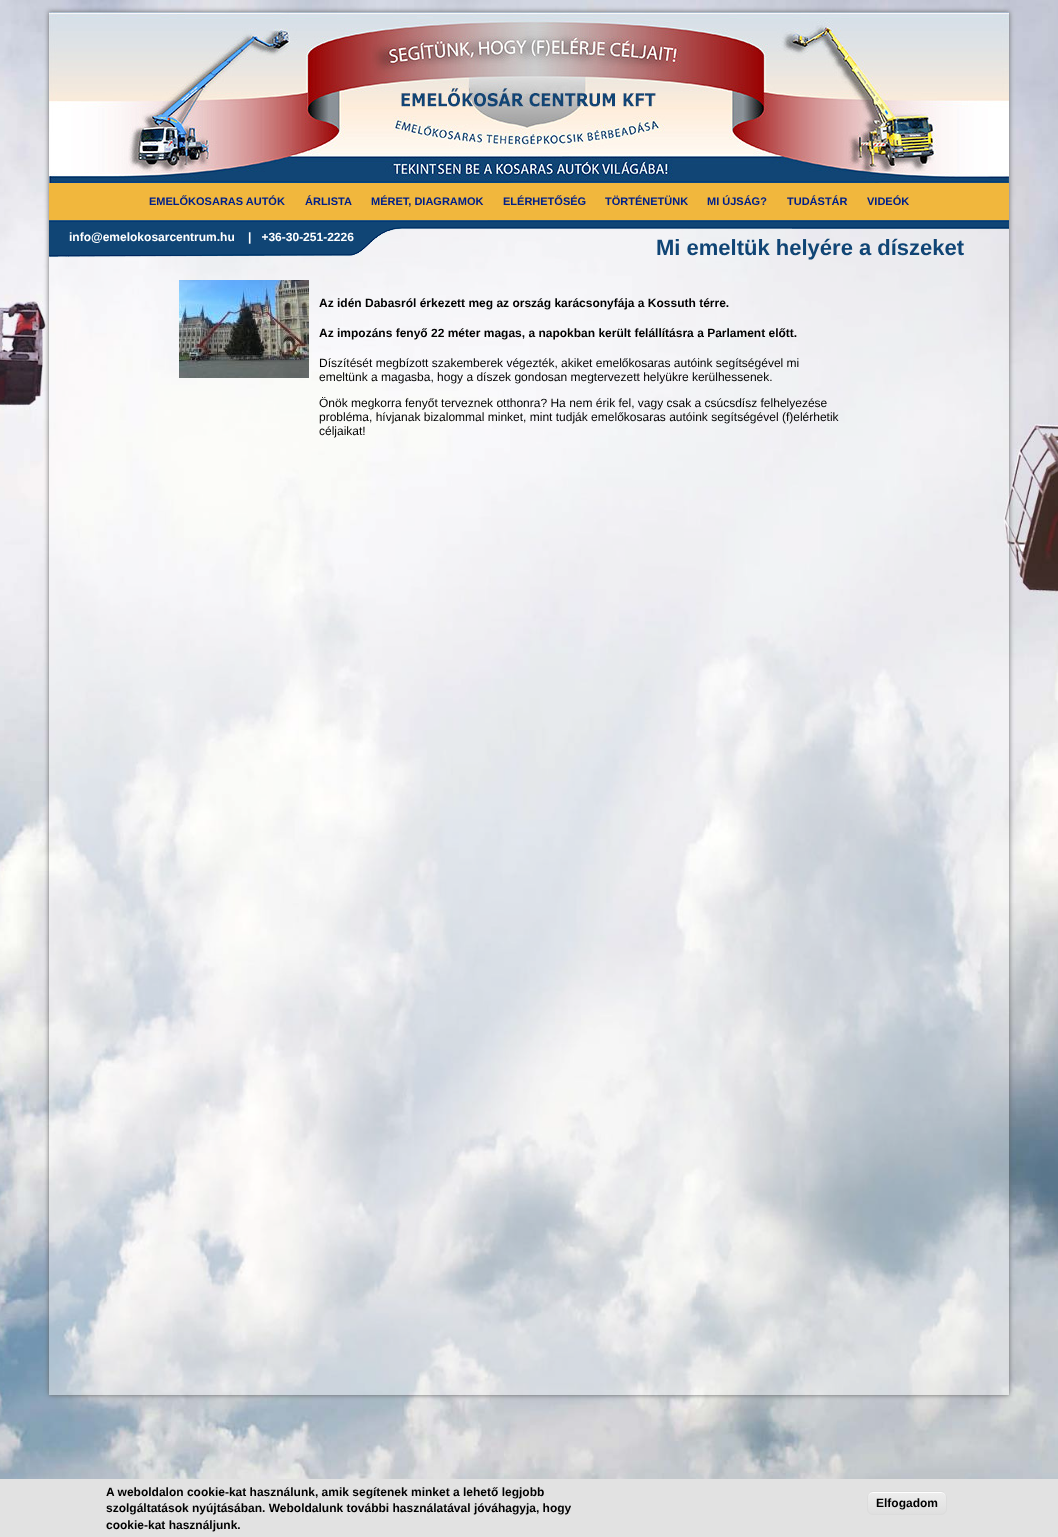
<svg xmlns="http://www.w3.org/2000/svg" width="1058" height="1537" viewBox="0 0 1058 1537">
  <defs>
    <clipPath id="clip1"><path d="M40 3H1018V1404H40ZM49 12H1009V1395H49Z" clip-rule="evenodd"/></clipPath>
    <clipPath id="clip2"><rect x="867" y="1491" width="80" height="24" rx="6"/></clipPath>
    <linearGradient id="g1" gradientUnits="userSpaceOnUse" x1="907" y1="1492" x2="907" y2="1514"><stop offset="0.05" stop-color="rgb(237,237,237)"/><stop offset="1" stop-color="rgb(223,223,223)"/></linearGradient>
  </defs>
  <rect width="100%" height="100%" fill="rgb(255,255,255)"/>
  <image x="0" y="0" width="1058" height="1479" href="pic1.png"/>
  <g clip-path="url(#clip1)">
    <rect x="49" y="12" width="960" height="1383" fill="rgb(102,102,102)" filter="blur(2.5px)"/>
  </g>
  <rect x="49" y="228" width="960" height="1167" fill="rgba(255,255,255,0.4)"/>
  <image x="49" y="12" width="960" height="171" href="pic2.png"/>
  <rect x="49" y="183" width="960" height="37" fill="rgb(241,183,61)"/>
  <g font-family="Liberation Sans" font-size="11" font-weight="bold" fill="rgb(0,32,137)">
    <text x="149" y="205">EMELŐKOSARAS AUTÓK</text>
    <text x="305" y="205">ÁRLISTA</text>
    <text x="371" y="205">MÉRET, DIAGRAMOK</text>
    <text x="503" y="205">ELÉRHETŐSÉG</text>
    <text x="605" y="205">TÖRTÉNETÜNK</text>
    <text x="707" y="205">MI ÚJSÁG?</text>
    <text x="787" y="205">TUDÁSTÁR</text>
    <text x="867" y="205">VIDEÓK</text>
  </g>
  <image x="49" y="220" width="960" height="37" href="pic3.png"/>
  <text x="69" y="241" font-family="Liberation Sans" font-size="12" font-weight="bold" fill="rgb(255,255,255)" xml:space="preserve">info@emelokosarcentrum.hu    |   +36-30-251-2226</text>
  <text x="656" y="255" font-family="Liberation Sans" font-size="22" font-weight="bold" fill="rgb(16,69,117)">Mi emeltük helyére a díszeket</text>
  <image x="179" y="280" width="130" height="98" href="pic4.png"/>
  <g font-family="Liberation Sans" font-size="12" font-weight="bold" fill="rgb(0,0,0)">
    <text x="319" y="307">Az idén Dabasról érkezett meg az ország karácsonyfája a Kossuth térre.</text>
    <text x="319" y="337">Az impozáns fenyő 22 méter magas, a napokban került felállításra a Parlament előtt.</text>
  </g>
  <g font-family="Liberation Sans" font-size="12" fill="rgb(0,0,0)">
    <text>
      <tspan x="319" y="367">Díszítését megbízott szakemberek végezték, akiket emelőkosaras autóink segítségével mi</tspan>
      <tspan x="319" y="381">emeltünk a magasba, hogy a díszek gondosan megtervezett helyükre kerülhessenek.</tspan>
    </text>
    <text>
      <tspan x="319" y="407">Önök megkorra fenyőt terveznek otthonra? Ha nem érik fel, vagy csak a csúcsdísz felhelyezése</tspan>
      <tspan x="319" y="421">probléma, hívjanak bizalommal minket, mint tudják emelőkosaras autóink segítségével (f)elérhetik</tspan>
      <tspan x="319" y="435">céljaikat!</tspan>
    </text>
  </g>
  <rect x="0" y="1479" width="1058" height="58" fill="rgb(226,226,226)"/>
  <g font-family="Liberation Sans" font-size="12" font-weight="bold" fill="rgb(0,0,0)">
    <text>
      <tspan x="106" y="1496">A weboldalon cookie-kat használunk, amik segítenek minket a lehető legjobb</tspan>
      <tspan x="106" y="1512">szolgáltatások nyújtásában. Weboldalunk további használatával jóváhagyja, hogy</tspan>
      <tspan x="106" y="1529">cookie-kat használjunk.</tspan>
    </text>
  </g>
  <g clip-path="url(#clip2)">
    <rect x="867" y="1492" width="80" height="22" fill="url(#g1)"/>
  </g>
  <path d="M873 1493H941C944 1493 946 1495 946 1498C946 1489 935 1492 930 1492H884C879 1492 868 1489 868 1498C868 1495 870 1493 873 1493Z" fill="rgb(255,255,255)"/>
  <rect x="867.5" y="1491.5" width="79" height="23" rx="5.5" fill="none" stroke="rgb(220,220,220)"/>
  <text x="876" y="1507" font-family="Liberation Sans" font-size="12" font-weight="bold" fill="rgb(0,0,0)">Elfogadom</text>
</svg>
